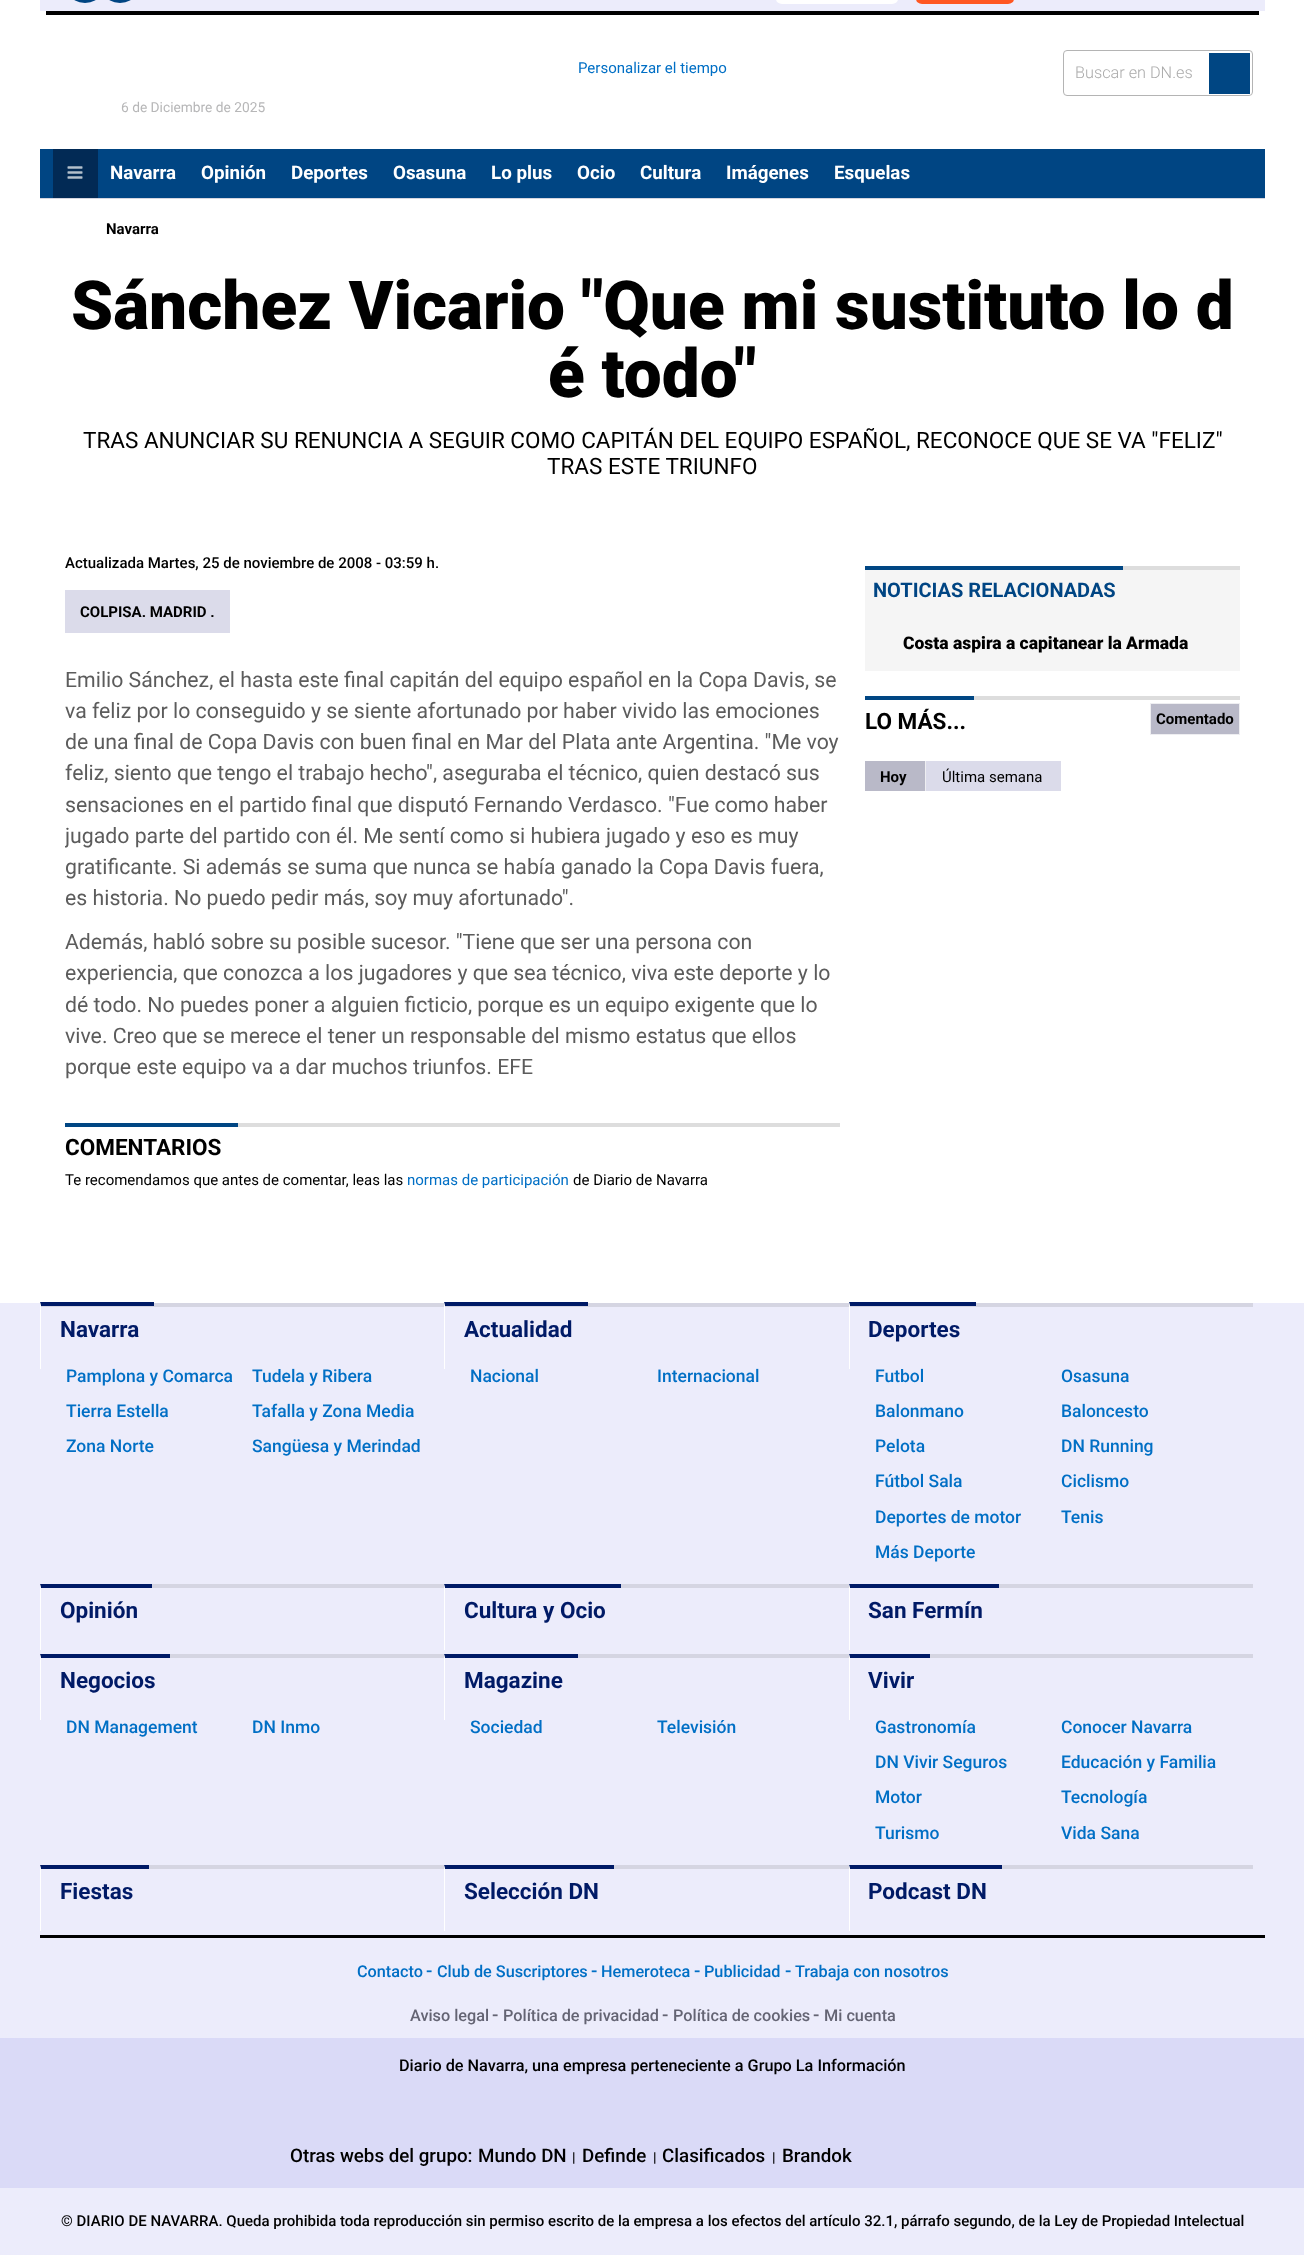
<svg xmlns="http://www.w3.org/2000/svg" width="1304" height="2265" viewBox="0 0 1304 2265">
  <defs>
    <clipPath id="clip1"><rect x="65" y="664" width="775" height="250"/></clipPath>
  </defs>
  <rect width="100%" height="100%" fill="rgb(255,255,255)"/>
  <rect x="40" y="0" width="1225" height="11" fill="rgb(236,236,251)"/>
  <rect x="71" y="-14" width="28" height="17" rx="14" fill="rgb(0,69,131)"/>
  <rect x="106" y="-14" width="28" height="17" rx="14" fill="rgb(0,69,131)"/>
  <rect x="776" y="-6" width="122" height="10" rx="6" fill="rgb(255,255,255)"/>
  <rect x="916" y="-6" width="98" height="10" rx="6" fill="rgb(255,87,34)"/>
  <rect x="46" y="11" width="1213" height="4" fill="rgb(0,0,0)"/>
  <text x="578" y="73" font-family="Roboto" font-size="15" fill="rgb(0,111,197)">Personalizar el tiempo</text>
  <text x="121" y="112" font-family="Roboto" font-size="13.75" fill="rgb(183,183,184)">6 de Diciembre de 2025</text>
  <rect x="1063.5" y="50.5" width="189" height="45" rx="3.5" fill="none" stroke="rgb(180,180,180)"/>
  <text x="1075" y="78" font-family="Roboto" font-size="16.25" font-weight="300" fill="rgb(171,171,171)">Buscar en DN.es</text>
  <rect x="1209" y="53" width="41" height="41" fill="rgb(0,70,131)"/>
  <rect x="40" y="198" width="1225" height="1" fill="rgb(213,213,223)"/>
  <rect x="40" y="149" width="13" height="49" fill="rgb(0,69,131)"/>
  <rect x="53" y="149" width="45" height="49" fill="rgb(2,42,85)"/>
  <image x="67" y="166" width="16" height="13" href="pic1.png"/>
  <rect x="98" y="149" width="1167" height="49" fill="rgb(0,69,131)"/>
  <g font-family="Roboto" font-size="18.75" font-weight="bold" fill="rgb(255,255,255)">
    <text x="110" y="179">Navarra</text>
    <text x="201" y="179">Opinión</text>
    <text x="291" y="179">Deportes</text>
    <text x="393" y="179">Osasuna</text>
    <text x="491" y="179">Lo plus</text>
    <text x="577" y="179">Ocio</text>
    <text x="640" y="179">Cultura</text>
    <text x="726" y="179">Imágenes</text>
    <text x="834" y="179">Esquelas</text>
  </g>
  <text x="106" y="234" font-family="Roboto" font-size="15" font-weight="bold" fill="rgb(0,0,0)">Navarra</text>
  <g font-family="Roboto" font-size="67.5" font-weight="900" fill="rgb(0,0,0)">
    <text x="71" y="329">Sánchez Vicario "Que mi sustituto lo d</text>
    <text x="548" y="397">é todo"</text>
  </g>
  <g font-family="Roboto" font-size="22.5" fill="rgb(0,0,0)">
    <text x="83" y="448">TRAS ANUNCIAR SU RENUNCIA A SEGUIR COMO CAPITÁN DEL EQUIPO ESPAÑOL, RECONOCE QUE SE VA "FELIZ"</text>
    <text x="547" y="474">TRAS ESTE TRIUNFO</text>
  </g>
  <text x="65" y="568" font-family="Roboto" font-size="15" font-weight="500" fill="rgb(0,0,0)">Actualizada Martes, 25 de noviembre de 2008 - 03:59 h.</text>
  <rect x="65" y="590" width="165" height="43" fill="rgb(219,219,234)"/>
  <text x="80" y="617" font-family="Roboto" font-size="15" font-weight="bold" fill="rgb(0,0,0)">COLPISA. MADRID .</text>
  <g font-family="Roboto" font-size="21.25" fill="rgb(92,92,92)">
    <text>
      <tspan x="65" y="687">Emilio Sánchez, el hasta este final capitán del equipo español en la Copa Davis, se</tspan>
      <tspan x="65" y="718">va feliz por lo conseguido y se siente afortunado por haber vivido las emociones</tspan>
      <tspan x="65" y="749">de una final de Copa Davis con buen final en Mar del Plata ante Argentina. "Me voy</tspan>
      <tspan x="65" y="780">feliz, siento que tengo el trabajo hecho", aseguraba el técnico, quien destacó sus</tspan>
      <tspan x="65" y="812">sensaciones en el partido final que disputó Fernando Verdasco. "Fue como haber</tspan>
    </text>
  </g>
  <g clip-path="url(#clip1)">
    <text x="65" y="843" font-family="Roboto" font-size="21.25" fill="rgb(92,92,92)">jugado parte del partido con él. Me sentí como si hubiera jugado y eso es muy</text>
  </g>
  <g font-family="Roboto" font-size="21.25" fill="rgb(92,92,92)">
    <text>
      <tspan x="65" y="874">gratificante. Si además se suma que nunca se había ganado la Copa Davis fuera,</tspan>
      <tspan x="65" y="905">es historia. No puedo pedir más, soy muy afortunado".</tspan>
    </text>
    <text>
      <tspan x="65" y="949">Además, habló sobre su posible sucesor. "Tiene que ser una persona con</tspan>
      <tspan x="65" y="980">experiencia, que conozca a los jugadores y que sea técnico, viva este deporte y lo</tspan>
      <tspan x="65" y="1012">dé todo. No puedes poner a alguien ficticio, porque es un equipo exigente que lo</tspan>
      <tspan x="65" y="1043">vive. Creo que se merece el tener un responsable del mismo estatus que ellos</tspan>
      <tspan x="65" y="1074">porque este equipo va a dar muchos triunfos. EFE</tspan>
    </text>
  </g>
  <rect x="238" y="1123" width="602" height="4" fill="rgb(221,221,221)"/>
  <rect x="65" y="1123" width="173" height="4" fill="rgb(0,70,131)"/>
  <text x="65" y="1155" font-family="Roboto" font-size="22.5" font-weight="bold" fill="rgb(0,0,0)">COMENTARIOS</text>
  <text x="65" y="1185" font-family="Roboto" font-size="15" fill="rgb(0,0,0)">Te recomendamos que antes de comentar, leas las</text>
  <text x="407" y="1185" font-family="Roboto" font-size="15" fill="rgb(0,111,197)">normas de participación</text>
  <text x="573" y="1185" font-family="Roboto" font-size="15" fill="rgb(0,0,0)">de Diario de Navarra</text>
  <rect x="865" y="570" width="375" height="101" fill="rgb(245,245,245)"/>
  <rect x="1123" y="566" width="117" height="4" fill="rgb(221,221,221)"/>
  <rect x="865" y="566" width="258" height="4" fill="rgb(0,70,131)"/>
  <text x="873" y="597" font-family="Roboto" font-size="20" font-weight="bold" fill="rgb(0,69,131)">NOTICIAS RELACIONADAS</text>
  <text x="903" y="649" font-family="Roboto" font-size="17.5" font-weight="900" fill="rgb(0,0,0)">Costa aspira a capitanear la Armada</text>
  <rect x="974" y="696" width="266" height="4" fill="rgb(221,221,221)"/>
  <rect x="865" y="696" width="109" height="4" fill="rgb(0,70,131)"/>
  <text x="865" y="729" font-family="Roboto" font-size="22.5" font-weight="bold" fill="rgb(0,0,0)">LO MÁS...</text>
  <rect x="1150.5" y="703.5" width="89" height="31" fill="none" stroke="rgb(238,238,241)"/>
  <rect x="1151" y="704" width="88" height="30" fill="rgb(185,185,200)"/>
  <text x="1156" y="724" font-family="Roboto" font-size="15" font-weight="bold" fill="rgb(0,0,0)">Comentado</text>
  <rect x="865" y="761" width="60" height="30" fill="rgb(185,185,200)"/>
  <text x="880" y="782" font-family="Roboto" font-size="15" font-weight="bold" fill="rgb(0,0,0)">Hoy</text>
  <rect x="925" y="761" width="1" height="30" fill="rgb(238,238,241)"/>
  <rect x="926" y="761" width="135" height="30" fill="rgb(219,219,234)"/>
  <text x="942" y="782" font-family="Roboto" font-size="15" fill="rgb(0,0,0)">Última semana</text>
  <rect x="0" y="1303" width="1304" height="952" fill="rgb(236,236,251)"/>
  <rect x="40" y="1303" width="1213" height="4" fill="rgb(213,213,226)"/>
  <path d="M40 1302H154V1306H41Z" fill="rgb(0,26,102)"/>
  <path d="M40 1369V1302L41 1306V1369Z" fill="rgb(255,255,255)"/>
  <text x="60" y="1337" font-family="Roboto" font-size="22.5" font-weight="bold" fill="rgb(0,26,102)">Navarra</text>
  <g font-family="Roboto" font-size="17.5" font-weight="500" fill="rgb(0,111,197)">
    <text x="66" y="1382">Pamplona y Comarca</text>
    <text x="252" y="1382">Tudela y Ribera</text>
    <text x="66" y="1417">Tierra Estella</text>
    <text x="252" y="1417">Tafalla y Zona Media</text>
    <text x="66" y="1452">Zona Norte</text>
    <text x="252" y="1452">Sangüesa y Merindad</text>
  </g>
  <path d="M444 1302H588V1306H445Z" fill="rgb(0,26,102)"/>
  <path d="M444 1369V1302L445 1306V1369Z" fill="rgb(255,255,255)"/>
  <text x="464" y="1337" font-family="Roboto" font-size="22.5" font-weight="bold" fill="rgb(0,26,102)">Actualidad</text>
  <g font-family="Roboto" font-size="17.5" font-weight="500" fill="rgb(0,111,197)">
    <text x="470" y="1382">Nacional</text>
    <text x="657" y="1382">Internacional</text>
  </g>
  <path d="M849 1302H976V1306H850Z" fill="rgb(0,26,102)"/>
  <path d="M849 1369V1302L850 1306V1369Z" fill="rgb(255,255,255)"/>
  <text x="868" y="1337" font-family="Roboto" font-size="22.5" font-weight="bold" fill="rgb(0,26,102)">Deportes</text>
  <g font-family="Roboto" font-size="17.5" font-weight="500" fill="rgb(0,111,197)">
    <text x="875" y="1382">Futbol</text>
    <text x="1061" y="1382">Osasuna</text>
    <text x="875" y="1417">Balonmano</text>
    <text x="1061" y="1417">Baloncesto</text>
    <text x="875" y="1452">Pelota</text>
    <text x="1061" y="1452">DN Running</text>
    <text x="875" y="1487">Fútbol Sala</text>
    <text x="1061" y="1487">Ciclismo</text>
    <text x="875" y="1523">Deportes de motor</text>
    <text x="1061" y="1523">Tenis</text>
    <text x="875" y="1558">Más Deporte</text>
  </g>
  <rect x="40" y="1584" width="1213" height="4" fill="rgb(213,213,226)"/>
  <path d="M40 1584H152V1588H41Z" fill="rgb(0,26,102)"/>
  <path d="M40 1650V1584L41 1588V1650Z" fill="rgb(255,255,255)"/>
  <text x="60" y="1618" font-family="Roboto" font-size="22.5" font-weight="bold" fill="rgb(0,26,102)">Opinión</text>
  <path d="M444 1584H621V1588H445Z" fill="rgb(0,26,102)"/>
  <path d="M444 1650V1584L445 1588V1650Z" fill="rgb(255,255,255)"/>
  <text x="464" y="1618" font-family="Roboto" font-size="22.5" font-weight="bold" fill="rgb(0,26,102)">Cultura y Ocio</text>
  <path d="M849 1584H999V1588H850Z" fill="rgb(0,26,102)"/>
  <path d="M849 1650V1584L850 1588V1650Z" fill="rgb(255,255,255)"/>
  <text x="868" y="1618" font-family="Roboto" font-size="22.5" font-weight="bold" fill="rgb(0,26,102)">San Fermín</text>
  <rect x="40" y="1654" width="1213" height="4" fill="rgb(213,213,226)"/>
  <path d="M40 1654H170V1658H41Z" fill="rgb(0,26,102)"/>
  <path d="M40 1720V1654L41 1658V1720Z" fill="rgb(255,255,255)"/>
  <text x="60" y="1688" font-family="Roboto" font-size="22.5" font-weight="bold" fill="rgb(0,26,102)">Negocios</text>
  <g font-family="Roboto" font-size="17.5" font-weight="500" fill="rgb(0,111,197)">
    <text x="66" y="1733">DN Management</text>
    <text x="252" y="1733">DN Inmo</text>
  </g>
  <path d="M444 1654H578V1658H445Z" fill="rgb(0,26,102)"/>
  <path d="M444 1720V1654L445 1658V1720Z" fill="rgb(255,255,255)"/>
  <text x="464" y="1688" font-family="Roboto" font-size="22.5" font-weight="bold" fill="rgb(0,26,102)">Magazine</text>
  <g font-family="Roboto" font-size="17.5" font-weight="500" fill="rgb(0,111,197)">
    <text x="470" y="1733">Sociedad</text>
    <text x="657" y="1733">Televisión</text>
  </g>
  <path d="M849 1654H930V1658H850Z" fill="rgb(0,26,102)"/>
  <path d="M849 1720V1654L850 1658V1720Z" fill="rgb(255,255,255)"/>
  <text x="868" y="1688" font-family="Roboto" font-size="22.5" font-weight="bold" fill="rgb(0,26,102)">Vivir</text>
  <g font-family="Roboto" font-size="17.5" font-weight="500" fill="rgb(0,111,197)">
    <text x="875" y="1733">Gastronomía</text>
    <text x="1061" y="1733">Conocer Navarra</text>
    <text x="875" y="1768">DN Vivir Seguros</text>
    <text x="1061" y="1768">Educación y Familia</text>
    <text x="875" y="1803">Motor</text>
    <text x="1061" y="1803">Tecnología</text>
    <text x="875" y="1839">Turismo</text>
    <text x="1061" y="1839">Vida Sana</text>
  </g>
  <rect x="40" y="1865" width="1213" height="4" fill="rgb(213,213,226)"/>
  <path d="M40 1865H149V1869H41Z" fill="rgb(0,26,102)"/>
  <path d="M40 1931V1865L41 1869V1931Z" fill="rgb(255,255,255)"/>
  <text x="60" y="1899" font-family="Roboto" font-size="22.5" font-weight="bold" fill="rgb(0,26,102)">Fiestas</text>
  <path d="M444 1865H614V1869H445Z" fill="rgb(0,26,102)"/>
  <path d="M444 1931V1865L445 1869V1931Z" fill="rgb(255,255,255)"/>
  <text x="464" y="1899" font-family="Roboto" font-size="22.5" font-weight="bold" fill="rgb(0,26,102)">Selección DN</text>
  <path d="M849 1865H1002V1869H850Z" fill="rgb(0,26,102)"/>
  <path d="M849 1931V1865L850 1869V1931Z" fill="rgb(255,255,255)"/>
  <text x="868" y="1899" font-family="Roboto" font-size="22.5" font-weight="bold" fill="rgb(0,26,102)">Podcast DN</text>
  <rect x="40" y="1935" width="1225" height="3" fill="rgb(0,0,0)"/>
  <text x="357" y="1977" font-family="Roboto" font-size="16.25" font-weight="500" fill="rgb(0,111,197)">Contacto</text>
  <text x="426" y="1977" font-family="Roboto" font-size="18.75" font-weight="500" fill="rgb(0,111,197)">-</text>
  <text x="437" y="1977" font-family="Roboto" font-size="16.25" font-weight="500" fill="rgb(0,111,197)">Club de Suscriptores</text>
  <text x="591" y="1977" font-family="Roboto" font-size="18.75" font-weight="500" fill="rgb(0,111,197)">-</text>
  <text x="601" y="1977" font-family="Roboto" font-size="16.25" font-weight="500" fill="rgb(0,111,197)">Hemeroteca</text>
  <text x="694" y="1977" font-family="Roboto" font-size="18.75" font-weight="500" fill="rgb(0,111,197)">-</text>
  <text x="704" y="1977" font-family="Roboto" font-size="16.25" font-weight="500" fill="rgb(0,111,197)">Publicidad</text>
  <text x="785" y="1977" font-family="Roboto" font-size="18.75" font-weight="500" fill="rgb(0,111,197)">-</text>
  <text x="795" y="1977" font-family="Roboto" font-size="16.25" font-weight="500" fill="rgb(0,111,197)">Trabaja con nosotros</text>
  <text x="410" y="2021" font-family="Roboto" font-size="16.25" font-weight="500" fill="rgb(100,100,115)">Aviso legal</text>
  <text x="492" y="2021" font-family="Roboto" font-size="18.75" font-weight="500" fill="rgb(100,100,115)">-</text>
  <text x="503" y="2021" font-family="Roboto" font-size="16.25" font-weight="500" fill="rgb(100,100,115)">Política de privacidad</text>
  <text x="662" y="2021" font-family="Roboto" font-size="18.75" font-weight="500" fill="rgb(100,100,115)">-</text>
  <text x="673" y="2021" font-family="Roboto" font-size="16.25" font-weight="500" fill="rgb(100,100,115)">Política de cookies</text>
  <text x="813" y="2021" font-family="Roboto" font-size="18.75" font-weight="500" fill="rgb(100,100,115)">-</text>
  <text x="824" y="2021" font-family="Roboto" font-size="16.25" font-weight="500" fill="rgb(100,100,115)">Mi cuenta</text>
  <rect x="0" y="2038" width="1304" height="150" fill="rgb(218,218,247)"/>
  <text x="399" y="2071" font-family="Roboto" font-size="16.25" font-weight="500" fill="rgb(0,0,0)">Diario de Navarra, una empresa perteneciente a Grupo La Información</text>
  <g font-family="Roboto" font-size="18.75" font-weight="500" fill="rgb(0,0,0)">
    <text x="290" y="2162">Otras webs del grupo:</text>
    <text x="478" y="2162">Mundo DN</text>
  </g>
  <text x="572" y="2162" font-family="Roboto" font-size="13.75" font-weight="bold" fill="rgb(0,0,0)">|</text>
  <text x="582" y="2162" font-family="Roboto" font-size="18.75" font-weight="500" fill="rgb(0,0,0)">Definde</text>
  <text x="653" y="2162" font-family="Roboto" font-size="13.75" font-weight="bold" fill="rgb(0,0,0)">|</text>
  <text x="662" y="2162" font-family="Roboto" font-size="18.75" font-weight="500" fill="rgb(0,0,0)">Clasificados</text>
  <text x="772" y="2162" font-family="Roboto" font-size="13.75" font-weight="bold" fill="rgb(0,0,0)">|</text>
  <text x="782" y="2162" font-family="Roboto" font-size="18.75" font-weight="500" fill="rgb(0,0,0)">Brandok</text>
  <text x="61" y="2226" font-family="Roboto" font-size="15" font-weight="500" fill="rgb(0,0,0)">© DIARIO DE NAVARRA. Queda prohibida toda reproducción sin permiso escrito de la empresa a los efectos del artículo 32.1, párrafo segundo, de la Ley de Propiedad Intelectual</text>
</svg>
